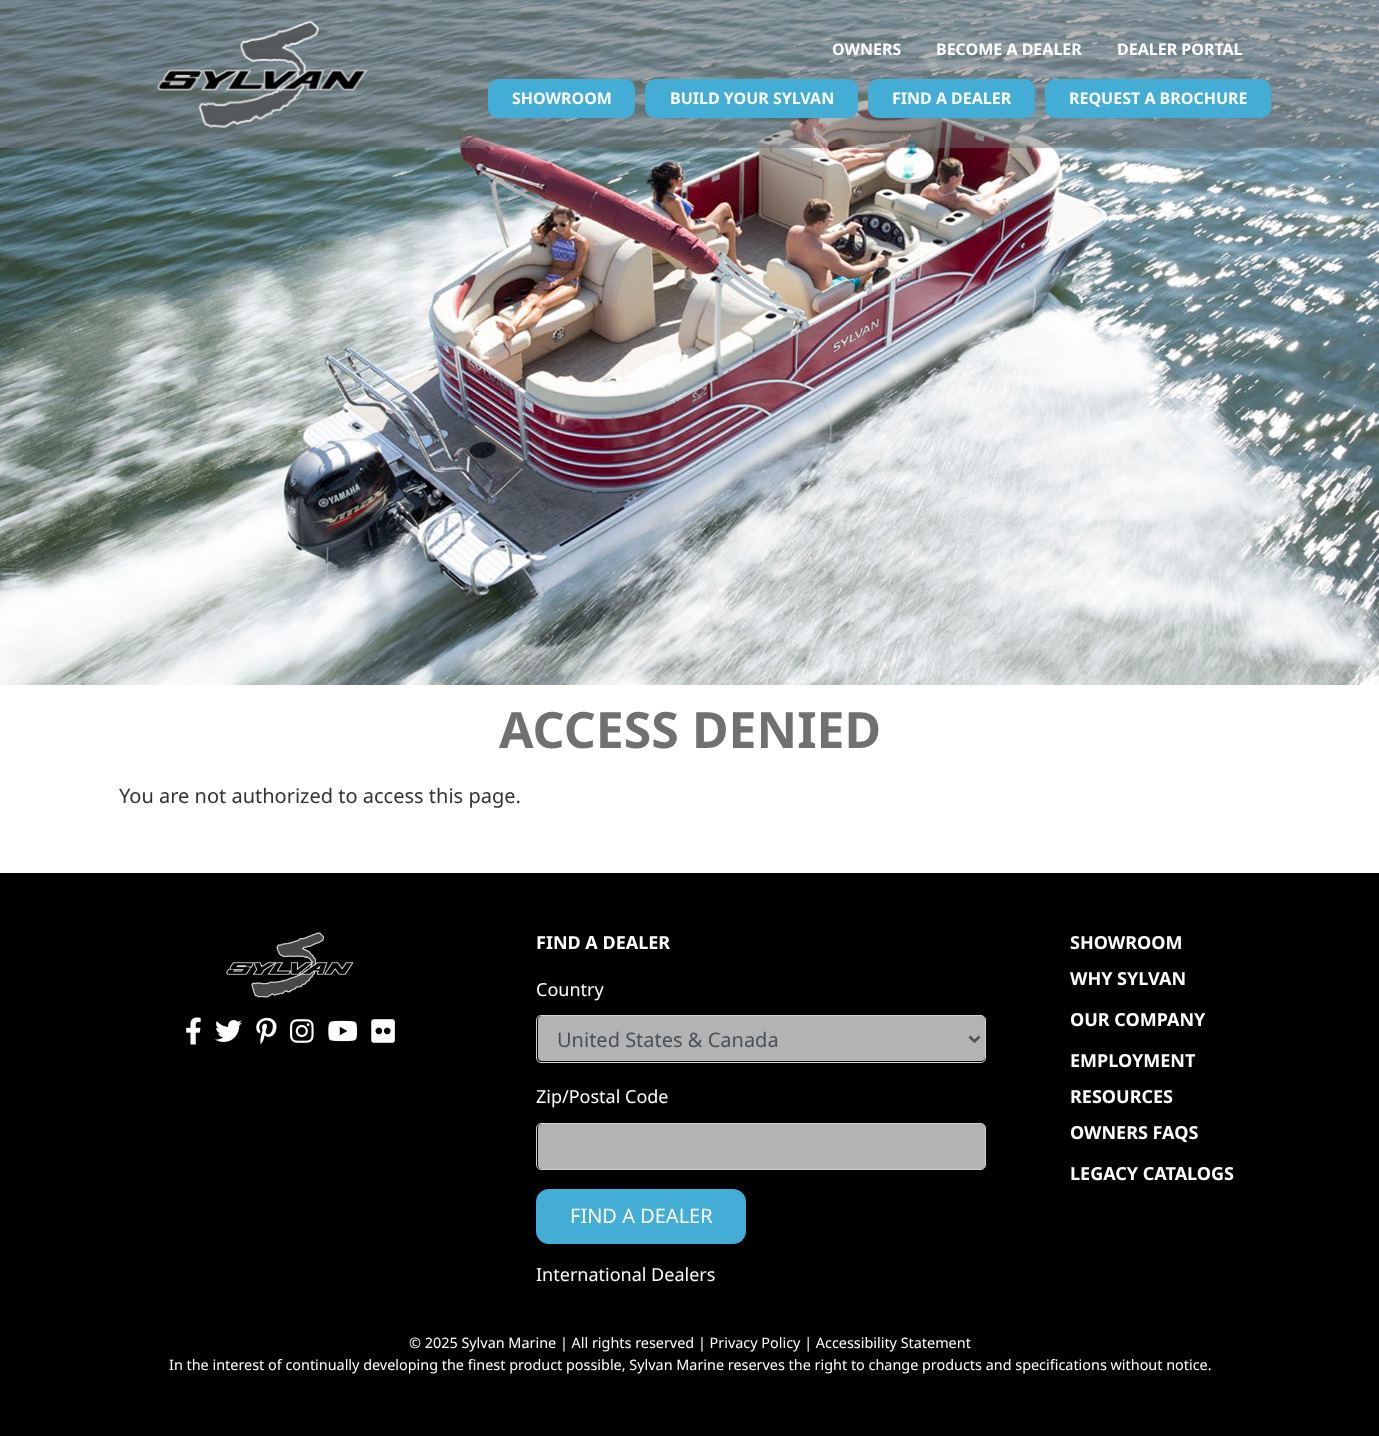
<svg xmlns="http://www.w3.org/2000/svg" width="1379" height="1436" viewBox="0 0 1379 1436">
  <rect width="100%" height="100%" fill="rgb(255,255,255)"/>
  <image x="0" y="0" width="1379" height="685" href="pic1.png"/>
  <rect x="0" y="0" width="1379" height="148" fill="rgba(112,112,112,0.5)"/>
  <image x="157" y="21" width="211" height="107" href="pic2.png"/>
  <g font-family="Noto Sans" font-size="16" font-weight="bold" fill="rgb(255,255,255)">
    <text x="832" y="55">OWNERS</text>
    <text x="936" y="55">BECOME A DEALER</text>
    <text x="1117" y="55">DEALER PORTAL</text>
  </g>
  <rect x="488" y="79" width="147" height="39" rx="10" fill="rgb(67,173,213)"/>
  <text x="512" y="104" font-family="Noto Sans" font-size="16" font-weight="bold" fill="rgb(255,255,255)">SHOWROOM</text>
  <rect x="645" y="79" width="213" height="39" rx="10" fill="rgb(67,173,213)"/>
  <text x="670" y="104" font-family="Noto Sans" font-size="16" font-weight="bold" fill="rgb(255,255,255)">BUILD YOUR SYLVAN</text>
  <rect x="868" y="79" width="167" height="39" rx="10" fill="rgb(67,173,213)"/>
  <text x="892" y="104" font-family="Noto Sans" font-size="16" font-weight="bold" fill="rgb(255,255,255)">FIND A DEALER</text>
  <rect x="1045" y="79" width="226" height="39" rx="10" fill="rgb(67,173,213)"/>
  <text x="1069" y="104" font-family="Noto Sans" font-size="16" font-weight="bold" fill="rgb(255,255,255)">REQUEST A BROCHURE</text>
  <text x="499" y="748" font-family="Noto Sans" font-size="50" font-weight="bold" fill="rgb(112,112,112)">ACCESS DENIED</text>
  <text x="119" y="803" font-family="Noto Sans" font-size="20" fill="rgb(51,51,51)">You are not authorized to access this page.</text>
  <rect x="0" y="873" width="1379" height="563" fill="rgb(0,0,0)"/>
  <image x="226" y="932" width="128" height="66" href="pic3.png"/>
  <image x="186" y="1017" width="15" height="28" href="pic4.png"/>
  <image x="215" y="1020" width="27" height="22" href="pic5.png"/>
  <image x="256" y="1017" width="21" height="28" href="pic6.png"/>
  <image x="290" y="1019" width="24" height="24" href="pic7.png"/>
  <image x="328" y="1020" width="30" height="22" href="pic8.png"/>
  <image x="371" y="1019" width="24" height="24" href="pic9.png"/>
  <text x="536" y="949" font-family="Noto Sans" font-size="18" font-weight="bold" fill="rgb(255,255,255)">FIND A DEALER</text>
  <text x="536" y="996" font-family="Noto Sans" font-size="18" fill="rgb(255,255,255)">Country</text>
  <rect x="538" y="1016" width="447" height="45" rx="4" fill="rgb(179,179,179)"/>
  <rect x="536.5" y="1015.5" width="449" height="47" rx="4.5" fill="none" stroke="rgb(206,212,218)"/>
  <path d="M969.5 1036.5L974.5 1041.5L979.5 1036.5" fill="none" stroke="rgb(73,80,87)" stroke-width="2.5"/>
  <text x="557" y="1047" font-family="Noto Sans" font-size="20" fill="rgb(73,80,87)">United States &amp; Canada</text>
  <text x="536" y="1103" font-family="Noto Sans" font-size="18" fill="rgb(255,255,255)">Zip/Postal Code</text>
  <rect x="538" y="1124" width="447" height="45" rx="4" fill="rgb(179,179,179)"/>
  <rect x="536.5" y="1123.5" width="449" height="46" rx="4.5" fill="none" stroke="rgb(206,212,218)"/>
  <rect x="536" y="1189" width="210" height="55" rx="13" fill="rgb(67,173,213)"/>
  <text x="570" y="1223" font-family="Noto Sans" font-size="20" fill="rgb(255,255,255)">FIND A DEALER</text>
  <text x="536" y="1281" font-family="Noto Sans" font-size="18" fill="rgb(255,255,255)">International Dealers</text>
  <g font-family="Noto Sans" font-size="18" font-weight="bold" fill="rgb(255,255,255)">
    <text x="1070" y="949">SHOWROOM</text>
    <text x="1070" y="985">WHY SYLVAN</text>
    <text x="1070" y="1026">OUR COMPANY</text>
    <text x="1070" y="1067">EMPLOYMENT</text>
    <text x="1070" y="1103">RESOURCES</text>
    <text x="1070" y="1139">OWNERS FAQS</text>
    <text x="1070" y="1180">LEGACY CATALOGS</text>
  </g>
  <g font-family="Noto Sans" font-size="14.4" fill="rgb(255,255,255)">
    <text x="409" y="1348">© 2025 Sylvan Marine | All rights reserved | Privacy Policy | Accessibility Statement</text>
    <text x="169" y="1370">In the interest of continually developing the finest product possible, Sylvan Marine reserves the right to change products and specifications without notice.</text>
  </g>
</svg>
